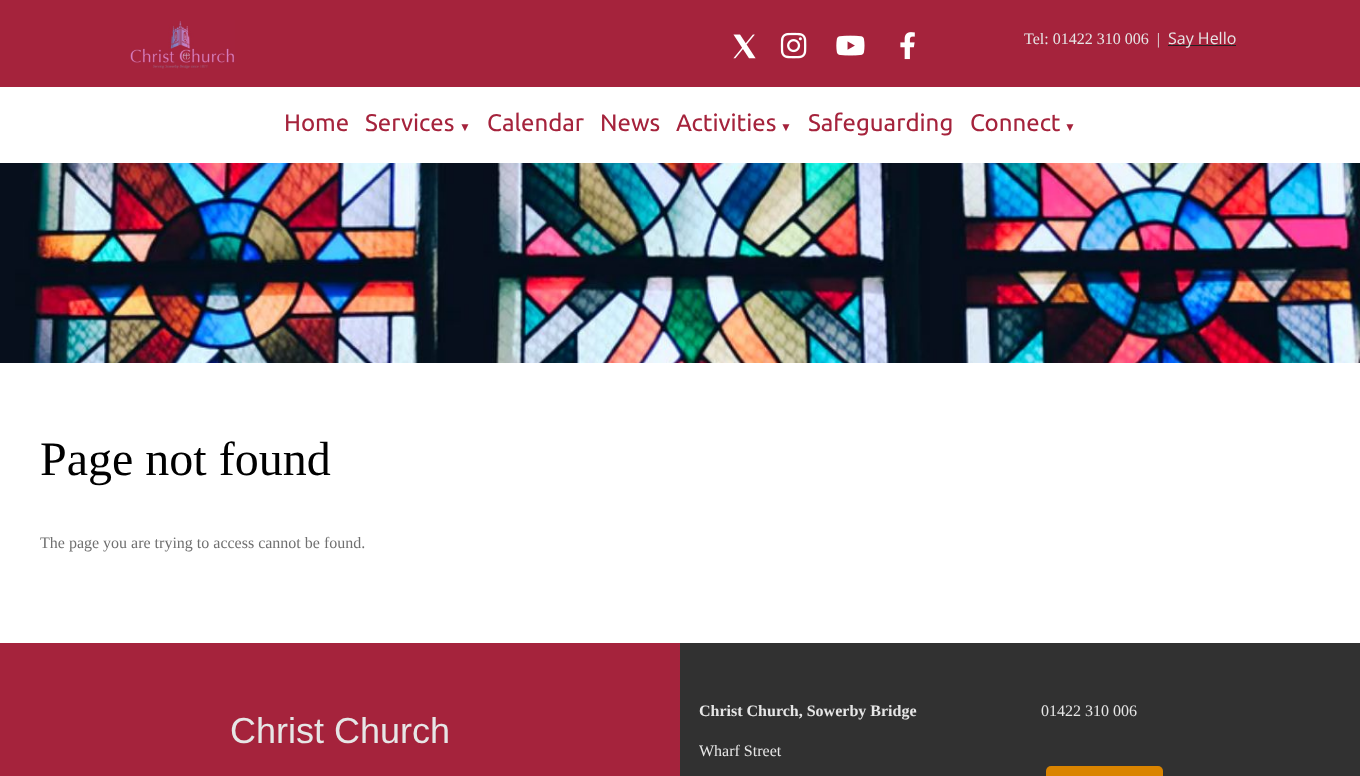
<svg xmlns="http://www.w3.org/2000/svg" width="1360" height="776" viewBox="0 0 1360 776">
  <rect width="100%" height="100%" fill="rgb(255,255,255)"/>
  <rect x="0" y="0" width="1360" height="87" fill="rgb(165,35,60)"/>
  <image x="130" y="20" width="105" height="49" href="pic1.png"/>
  <image x="733" y="34" width="23" height="25" href="pic2.png"/>
  <image x="780" y="32" width="27" height="27" href="pic3.png"/>
  <image x="836" y="35" width="29" height="21" href="pic4.png"/>
  <image x="900" y="32" width="15" height="28" href="pic5.png"/>
  <text x="1024" y="44" font-family="Liberation Serif" font-size="16" fill="rgb(230,230,230)" xml:space="preserve">Tel: 01422 310 006  |</text>
  <rect x="1168" y="45" width="68" height="1" fill="rgb(34,34,34)"/>
  <text x="1168" y="44" font-family="Open Sans" font-size="16" fill="rgb(230,230,230)">Say Hello</text>
  <g font-family="Ubuntu" font-size="24" fill="rgb(165,35,60)">
    <text x="284" y="131">Home</text>
    <text x="365" y="131">Services</text>
  </g>
  <text x="459" y="131" font-family="Liberation Serif" font-size="12" fill="rgb(165,35,60)">▼</text>
  <g font-family="Ubuntu" font-size="24" fill="rgb(165,35,60)">
    <text x="487" y="131">Calendar</text>
    <text x="600" y="131">News</text>
    <text x="676" y="131">Activities</text>
  </g>
  <text x="780" y="131" font-family="Liberation Serif" font-size="12" fill="rgb(165,35,60)">▼</text>
  <g font-family="Ubuntu" font-size="24" fill="rgb(165,35,60)">
    <text x="808" y="131">Safeguarding</text>
    <text x="970" y="131">Connect</text>
  </g>
  <text x="1064" y="131" font-family="Liberation Serif" font-size="12" fill="rgb(165,35,60)">▼</text>
  <image x="0" y="163" width="1360" height="200" href="pic6.png"/>
  <text x="40" y="475" font-family="Liberation Serif" font-size="48" fill="rgb(0,0,0)">Page not found</text>
  <text x="40" y="548" font-family="Liberation Serif" font-size="16" fill="rgb(112,112,112)">The page you are trying to access cannot be found.</text>
  <rect x="0" y="643" width="680" height="133" fill="rgb(165,35,60)"/>
  <rect x="680" y="643" width="680" height="133" fill="rgb(49,49,49)"/>
  <text x="699" y="716" font-family="Liberation Serif" font-size="16" font-weight="bold" fill="rgb(230,230,230)">Christ Church, Sowerby Bridge</text>
  <g font-family="Liberation Serif" font-size="16" fill="rgb(230,230,230)">
    <text x="699" y="756">Wharf Street</text>
    <text x="1041" y="716">01422 310 006</text>
  </g>
  <rect x="1046" y="766" width="117" height="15" rx="5" fill="rgb(218,132,0)"/>
  <text x="230" y="743" font-family="Liberation Sans" font-size="36" fill="rgb(230,230,230)">Christ Church</text>
</svg>
